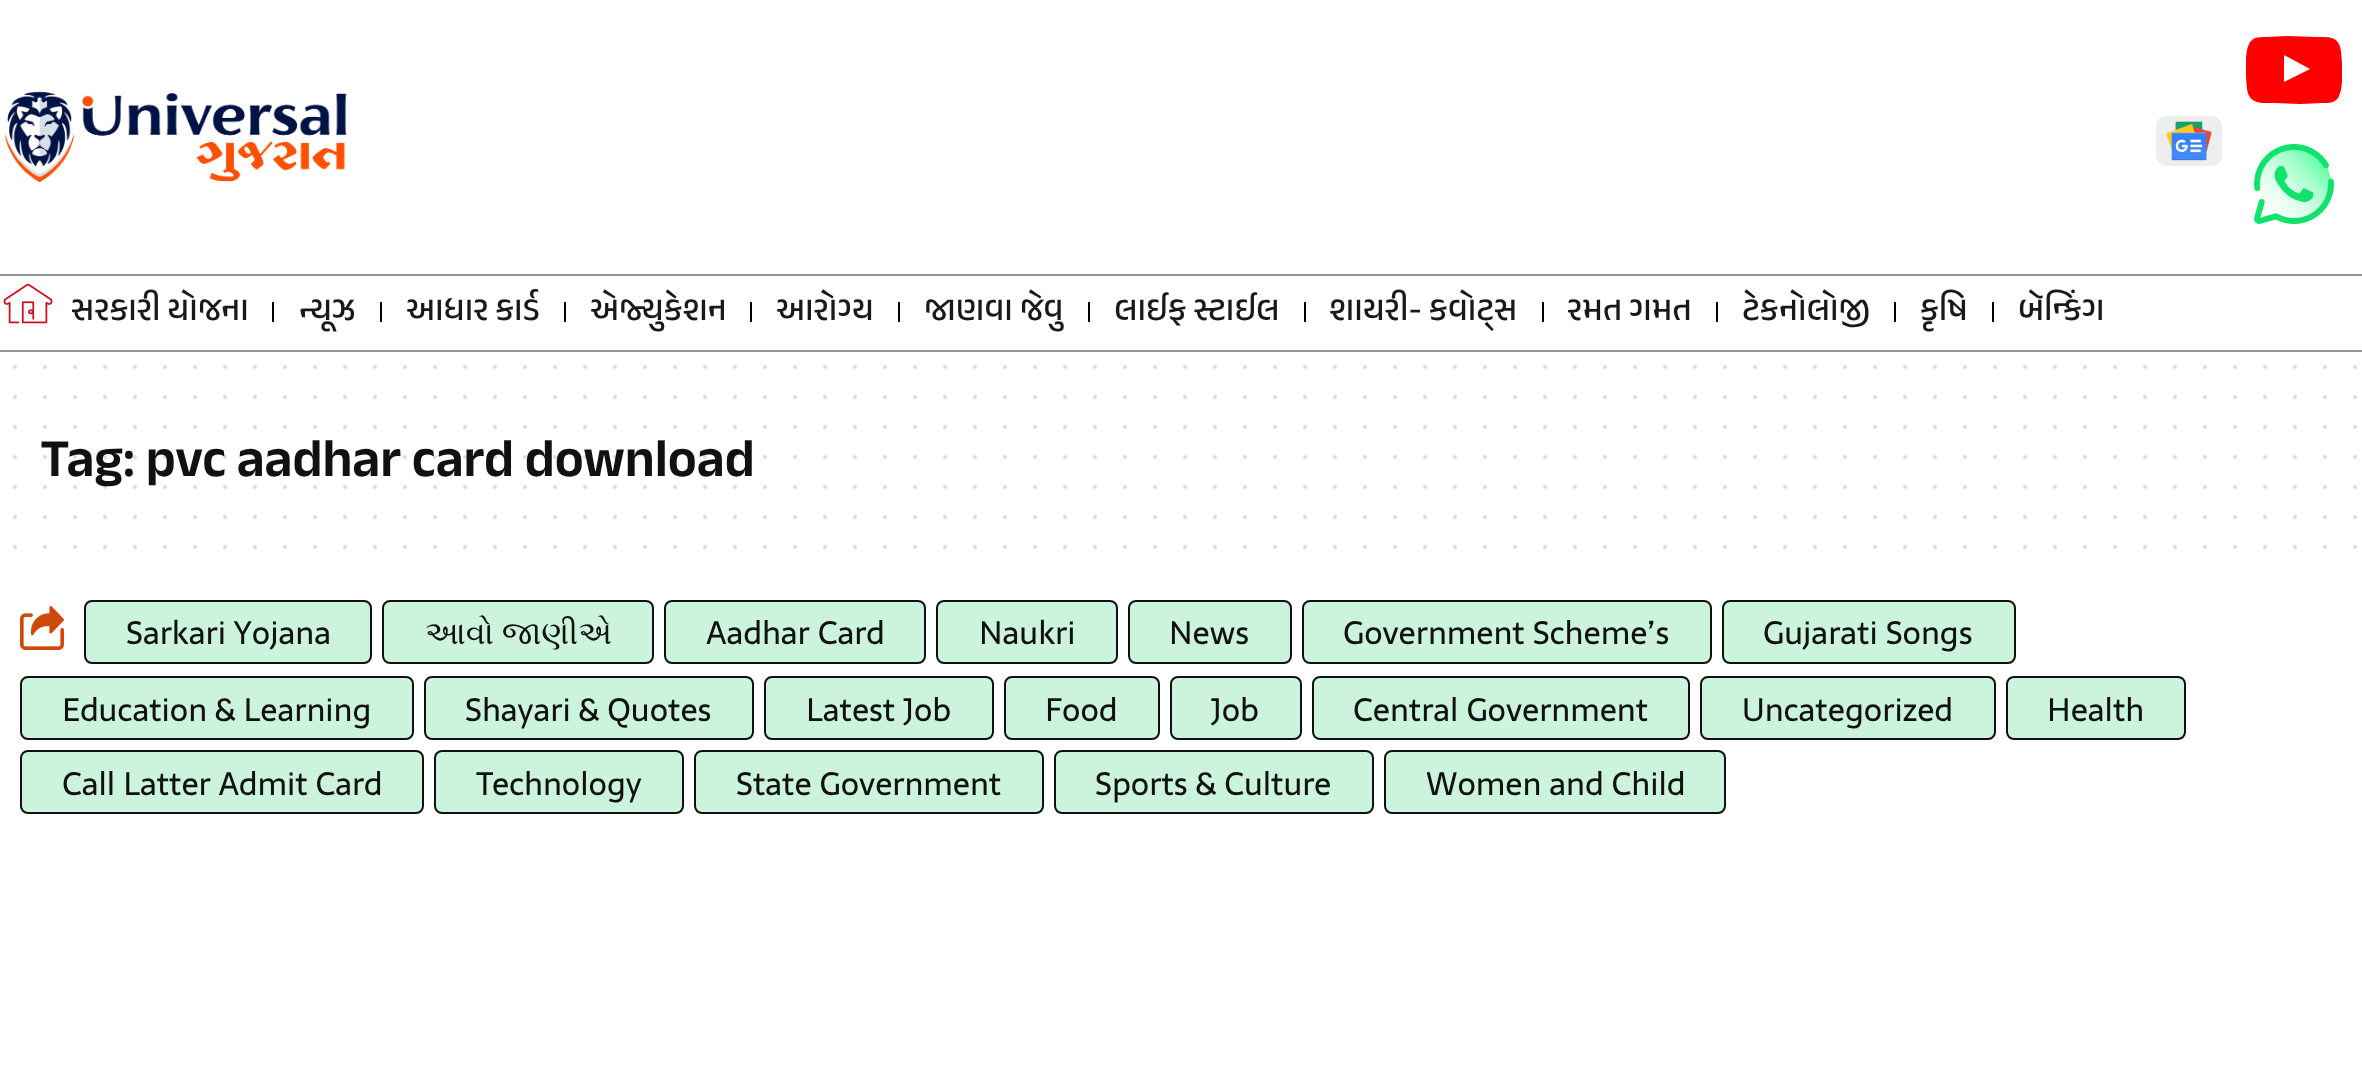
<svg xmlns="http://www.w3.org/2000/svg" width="2362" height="1091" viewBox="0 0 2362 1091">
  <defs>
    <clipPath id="clip1"><rect x="2246" y="22" width="96" height="96"/></clipPath>
  </defs>
  <rect width="100%" height="100%" fill="rgb(255,255,255)"/>
  <image x="4" y="91" width="343" height="92" href="pic1.png"/>
  <image x="2156" y="116" width="66" height="50" href="pic2.png"/>
  <g clip-path="url(#clip1)">
    <path d="M2341 51C2339 36 2329 37 2317 37L2287 36L2266 37C2262 37 2258 37 2255 38C2252 40 2250 41 2249 44C2244 54 2246 79 2247 89C2249 105 2263 103 2275 103L2301 104L2322 103C2326 103 2330 103 2333 102C2336 100 2338 99 2339 96C2344 86 2342 62 2341 51ZM2284 82V55L2310 69Z" fill="rgb(255,0,0)" fill-rule="evenodd"/>
  </g>
  <image x="2254" y="144" width="80" height="80" href="pic3.png"/>
  <rect x="0" y="274" width="2362" height="2" fill="rgb(147,147,147)"/>
  <rect x="0" y="350" width="2362" height="2" fill="rgb(147,147,147)"/>
  <image x="3" y="283" width="50" height="41" href="pic4.png"/>
  <text x="71" y="320" font-family="Anek Gujarati" font-size="34" font-weight="500" fill="rgb(25,25,25)">સરકારી યોજના</text>
  <rect x="272" y="302" width="2" height="20" fill="rgb(0,0,0)"/>
  <text x="299" y="320" font-family="Anek Gujarati" font-size="34" font-weight="500" fill="rgb(25,25,25)">ન્યૂઝ</text>
  <rect x="380" y="302" width="2" height="20" fill="rgb(0,0,0)"/>
  <text x="406" y="320" font-family="Anek Gujarati" font-size="34" font-weight="500" fill="rgb(25,25,25)">આધાર કાર્ડ</text>
  <rect x="564" y="302" width="2" height="20" fill="rgb(0,0,0)"/>
  <text x="590" y="320" font-family="Anek Gujarati" font-size="34" font-weight="500" fill="rgb(25,25,25)">એજ્યુકેશન</text>
  <rect x="750" y="302" width="2" height="20" fill="rgb(0,0,0)"/>
  <text x="776" y="320" font-family="Anek Gujarati" font-size="34" font-weight="500" fill="rgb(25,25,25)">આરોગ્ય</text>
  <rect x="898" y="302" width="2" height="20" fill="rgb(0,0,0)"/>
  <text x="924" y="320" font-family="Anek Gujarati" font-size="34" font-weight="500" fill="rgb(25,25,25)">જાણવા જેવુ</text>
  <rect x="1088" y="302" width="2" height="20" fill="rgb(0,0,0)"/>
  <text x="1114" y="320" font-family="Anek Gujarati" font-size="34" font-weight="500" fill="rgb(25,25,25)">લાઈફ સ્ટાઈલ</text>
  <rect x="1304" y="302" width="2" height="20" fill="rgb(0,0,0)"/>
  <text x="1329" y="320" font-family="Anek Gujarati" font-size="34" font-weight="500" fill="rgb(25,25,25)">શાયરી- કવોટ્સ</text>
  <rect x="1542" y="302" width="2" height="20" fill="rgb(0,0,0)"/>
  <text x="1567" y="320" font-family="Anek Gujarati" font-size="34" font-weight="500" fill="rgb(25,25,25)">રમત ગમત</text>
  <rect x="1716" y="302" width="2" height="20" fill="rgb(0,0,0)"/>
  <text x="1742" y="320" font-family="Anek Gujarati" font-size="34" font-weight="500" fill="rgb(25,25,25)">ટેકનોલોજી</text>
  <rect x="1894" y="302" width="2" height="20" fill="rgb(0,0,0)"/>
  <text x="1920" y="320" font-family="Anek Gujarati" font-size="34" font-weight="500" fill="rgb(25,25,25)">કૃષિ</text>
  <rect x="1992" y="302" width="2" height="20" fill="rgb(0,0,0)"/>
  <text x="2018" y="320" font-family="Anek Gujarati" font-size="34" font-weight="500" fill="rgb(25,25,25)">બૅન્કિંગ</text>
  <path d="M15 367H2355.4" fill="none" stroke="rgb(219,219,219)" stroke-width="4" stroke-linecap="round" stroke-dasharray="0 30"/>
  <path d="M15 397H2355.4" fill="none" stroke="rgb(219,219,219)" stroke-width="4" stroke-linecap="round" stroke-dasharray="0 30"/>
  <path d="M15 427H2355.4" fill="none" stroke="rgb(219,219,219)" stroke-width="4" stroke-linecap="round" stroke-dasharray="0 30"/>
  <text x="40" y="476" font-family="Anek Gujarati" font-size="54" font-weight="600" fill="rgb(17,17,17)">Tag: pvc aadhar card download</text>
  <path d="M15 457H2355.4" fill="none" stroke="rgba(17,17,17,0.15)" stroke-width="4" stroke-linecap="round" stroke-dasharray="0 30"/>
  <path d="M15 487H2355.4" fill="none" stroke="rgba(17,17,17,0.15)" stroke-width="4" stroke-linecap="round" stroke-dasharray="0 30"/>
  <path d="M15 517H2355.4" fill="none" stroke="rgb(219,219,219)" stroke-width="4" stroke-linecap="round" stroke-dasharray="0 30"/>
  <path d="M15 547H2355.4" fill="none" stroke="rgb(219,219,219)" stroke-width="4" stroke-linecap="round" stroke-dasharray="0 30"/>
  <image x="20" y="606" width="44" height="44" href="pic5.png"/>
  <rect x="85" y="601" width="286" height="62" rx="7" fill="rgb(204,244,220)" stroke="rgb(17,17,17)" stroke-width="2"/>
  <text x="126" y="644" font-family="Sarala" font-size="32" fill="rgb(17,17,17)">Sarkari Yojana</text>
  <rect x="383" y="601" width="270" height="62" rx="7" fill="rgb(204,244,220)" stroke="rgb(17,17,17)" stroke-width="2"/>
  <text x="425" y="644" font-family="FreeSerif" font-size="32" fill="rgb(17,17,17)">આવો જાણીએ</text>
  <rect x="665" y="601" width="260" height="62" rx="7" fill="rgb(204,244,220)" stroke="rgb(17,17,17)" stroke-width="2"/>
  <text x="706" y="644" font-family="Sarala" font-size="32" fill="rgb(17,17,17)">Aadhar Card</text>
  <rect x="937" y="601" width="180" height="62" rx="7" fill="rgb(204,244,220)" stroke="rgb(17,17,17)" stroke-width="2"/>
  <text x="979" y="644" font-family="Sarala" font-size="32" fill="rgb(17,17,17)">Naukri</text>
  <rect x="1129" y="601" width="162" height="62" rx="7" fill="rgb(204,244,220)" stroke="rgb(17,17,17)" stroke-width="2"/>
  <text x="1169" y="644" font-family="Sarala" font-size="32" fill="rgb(17,17,17)">News</text>
  <rect x="1303" y="601" width="408" height="62" rx="7" fill="rgb(204,244,220)" stroke="rgb(17,17,17)" stroke-width="2"/>
  <text x="1343" y="644" font-family="Sarala" font-size="32" fill="rgb(17,17,17)">Government Scheme’s</text>
  <rect x="1723" y="601" width="292" height="62" rx="7" fill="rgb(204,244,220)" stroke="rgb(17,17,17)" stroke-width="2"/>
  <text x="1763" y="644" font-family="Sarala" font-size="32" fill="rgb(17,17,17)">Gujarati Songs</text>
  <rect x="21" y="677" width="392" height="62" rx="7" fill="rgb(204,244,220)" stroke="rgb(17,17,17)" stroke-width="2"/>
  <text x="62" y="721" font-family="Sarala" font-size="32" fill="rgb(17,17,17)">Education &amp; Learning</text>
  <rect x="425" y="677" width="328" height="62" rx="7" fill="rgb(204,244,220)" stroke="rgb(17,17,17)" stroke-width="2"/>
  <text x="465" y="721" font-family="Sarala" font-size="32" fill="rgb(17,17,17)">Shayari &amp; Quotes</text>
  <rect x="765" y="677" width="228" height="62" rx="7" fill="rgb(204,244,220)" stroke="rgb(17,17,17)" stroke-width="2"/>
  <text x="806" y="721" font-family="Sarala" font-size="32" fill="rgb(17,17,17)">Latest Job</text>
  <rect x="1005" y="677" width="154" height="62" rx="7" fill="rgb(204,244,220)" stroke="rgb(17,17,17)" stroke-width="2"/>
  <text x="1045" y="721" font-family="Sarala" font-size="32" fill="rgb(17,17,17)">Food</text>
  <rect x="1171" y="677" width="130" height="62" rx="7" fill="rgb(204,244,220)" stroke="rgb(17,17,17)" stroke-width="2"/>
  <text x="1211" y="721" font-family="Sarala" font-size="32" fill="rgb(17,17,17)">Job</text>
  <rect x="1313" y="677" width="376" height="62" rx="7" fill="rgb(204,244,220)" stroke="rgb(17,17,17)" stroke-width="2"/>
  <text x="1353" y="721" font-family="Sarala" font-size="32" fill="rgb(17,17,17)">Central Government</text>
  <rect x="1701" y="677" width="294" height="62" rx="7" fill="rgb(204,244,220)" stroke="rgb(17,17,17)" stroke-width="2"/>
  <text x="1742" y="721" font-family="Sarala" font-size="32" fill="rgb(17,17,17)">Uncategorized</text>
  <rect x="2007" y="677" width="178" height="62" rx="7" fill="rgb(204,244,220)" stroke="rgb(17,17,17)" stroke-width="2"/>
  <text x="2047" y="721" font-family="Sarala" font-size="32" fill="rgb(17,17,17)">Health</text>
  <rect x="21" y="751" width="402" height="62" rx="7" fill="rgb(204,244,220)" stroke="rgb(17,17,17)" stroke-width="2"/>
  <text x="62" y="795" font-family="Sarala" font-size="32" fill="rgb(17,17,17)">Call Latter Admit Card</text>
  <rect x="435" y="751" width="248" height="62" rx="7" fill="rgb(204,244,220)" stroke="rgb(17,17,17)" stroke-width="2"/>
  <text x="476" y="795" font-family="Sarala" font-size="32" fill="rgb(17,17,17)">Technology</text>
  <rect x="695" y="751" width="348" height="62" rx="7" fill="rgb(204,244,220)" stroke="rgb(17,17,17)" stroke-width="2"/>
  <text x="736" y="795" font-family="Sarala" font-size="32" fill="rgb(17,17,17)">State Government</text>
  <rect x="1055" y="751" width="318" height="62" rx="7" fill="rgb(204,244,220)" stroke="rgb(17,17,17)" stroke-width="2"/>
  <text x="1095" y="795" font-family="Sarala" font-size="32" fill="rgb(17,17,17)">Sports &amp; Culture</text>
  <rect x="1385" y="751" width="340" height="62" rx="7" fill="rgb(204,244,220)" stroke="rgb(17,17,17)" stroke-width="2"/>
  <text x="1426" y="795" font-family="Sarala" font-size="32" fill="rgb(17,17,17)">Women and Child</text>
</svg>
